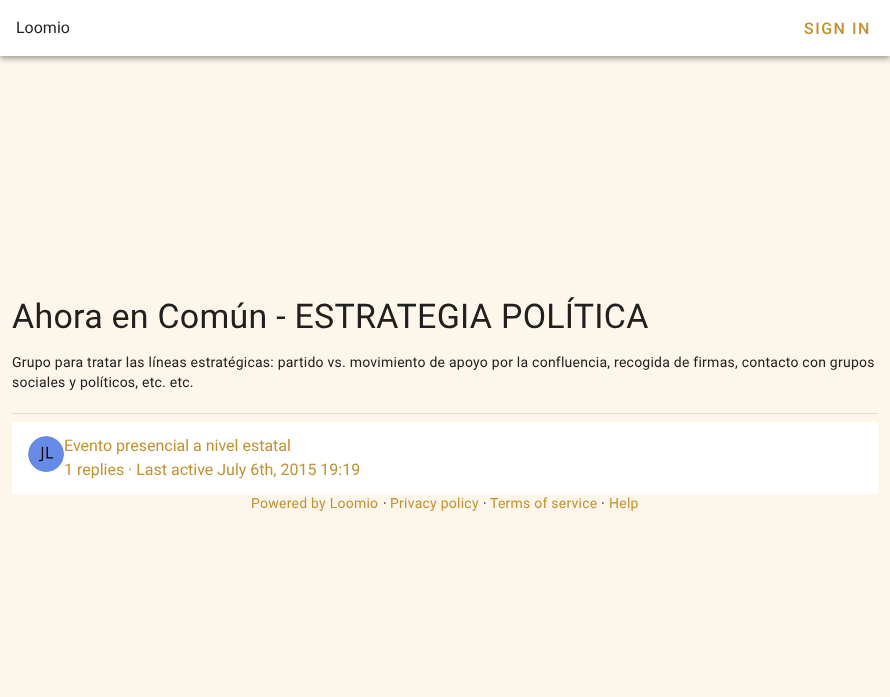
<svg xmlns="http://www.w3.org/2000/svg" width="890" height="697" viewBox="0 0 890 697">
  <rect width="100%" height="100%" fill="rgb(252,246,235)"/>
  <rect x="0" y="1" width="890" height="56" fill="rgba(0,0,0,0.12)" filter="blur(5px)"/>
  <rect x="0" y="4" width="890" height="56" fill="rgba(0,0,0,0.14)" filter="blur(2.5px)"/>
  <rect x="1" y="3" width="888" height="54" fill="rgba(0,0,0,0.2)" filter="blur(2px)"/>
  <rect x="0" y="0" width="890" height="56" fill="rgb(255,255,255)"/>
  <text x="16" y="33" font-family="Roboto" font-size="16" fill="rgb(33,32,31)">Loomio</text>
  <rect x="803" y="20" width="66" height="17" rx="3" fill="none" stroke="rgb(255,255,255)" stroke-width="2"/>
  <text x="804" y="34" font-family="Roboto" font-size="16" font-weight="500" letter-spacing="1.5" fill="rgb(198,144,47)">SIGN IN</text>
  <text x="12" y="328" font-family="Roboto" font-size="34" letter-spacing="0.25" fill="rgb(33,32,31)">Ahora en Común - ESTRATEGIA POLÍTICA</text>
  <g font-family="Roboto" font-size="14" letter-spacing="0.25" fill="rgb(33,32,31)">
    <text>
      <tspan x="12" y="367">Grupo para tratar las líneas estratégicas: partido vs. movimiento de apoyo por la confluencia, recogida de firmas, contacto con grupos</tspan>
      <tspan x="12" y="387">sociales y políticos, etc. etc.</tspan>
    </text>
  </g>
  <rect x="12" y="413" width="866" height="1" fill="rgb(226,220,211)"/>
  <rect x="12" y="422" width="866" height="72" fill="rgb(255,255,255)"/>
  <image x="28" y="436" width="36" height="36" href="pic1.png"/>
  <g font-family="Roboto" font-size="16" fill="rgb(198,144,47)">
    <text>
      <tspan x="64" y="451">Evento presencial a nivel estatal</tspan>
      <tspan x="64" y="475">1 replies · Last active July 6th, 2015 19:19</tspan>
    </text>
  </g>
  <text x="251" y="508" font-family="Roboto" font-size="14" letter-spacing="0.25" fill="rgb(198,144,47)">Powered by Loomio</text>
  <text x="383" y="508" font-family="Roboto" font-size="14" letter-spacing="0.25" fill="rgb(33,32,31)">·</text>
  <text x="390" y="508" font-family="Roboto" font-size="14" letter-spacing="0.25" fill="rgb(198,144,47)">Privacy policy</text>
  <text x="483" y="508" font-family="Roboto" font-size="14" letter-spacing="0.25" fill="rgb(33,32,31)">·</text>
  <text x="490" y="508" font-family="Roboto" font-size="14" letter-spacing="0.25" fill="rgb(198,144,47)">Terms of service</text>
  <text x="601" y="508" font-family="Roboto" font-size="14" letter-spacing="0.25" fill="rgb(33,32,31)">·</text>
  <text x="609" y="508" font-family="Roboto" font-size="14" letter-spacing="0.25" fill="rgb(198,144,47)">Help</text>
</svg>
